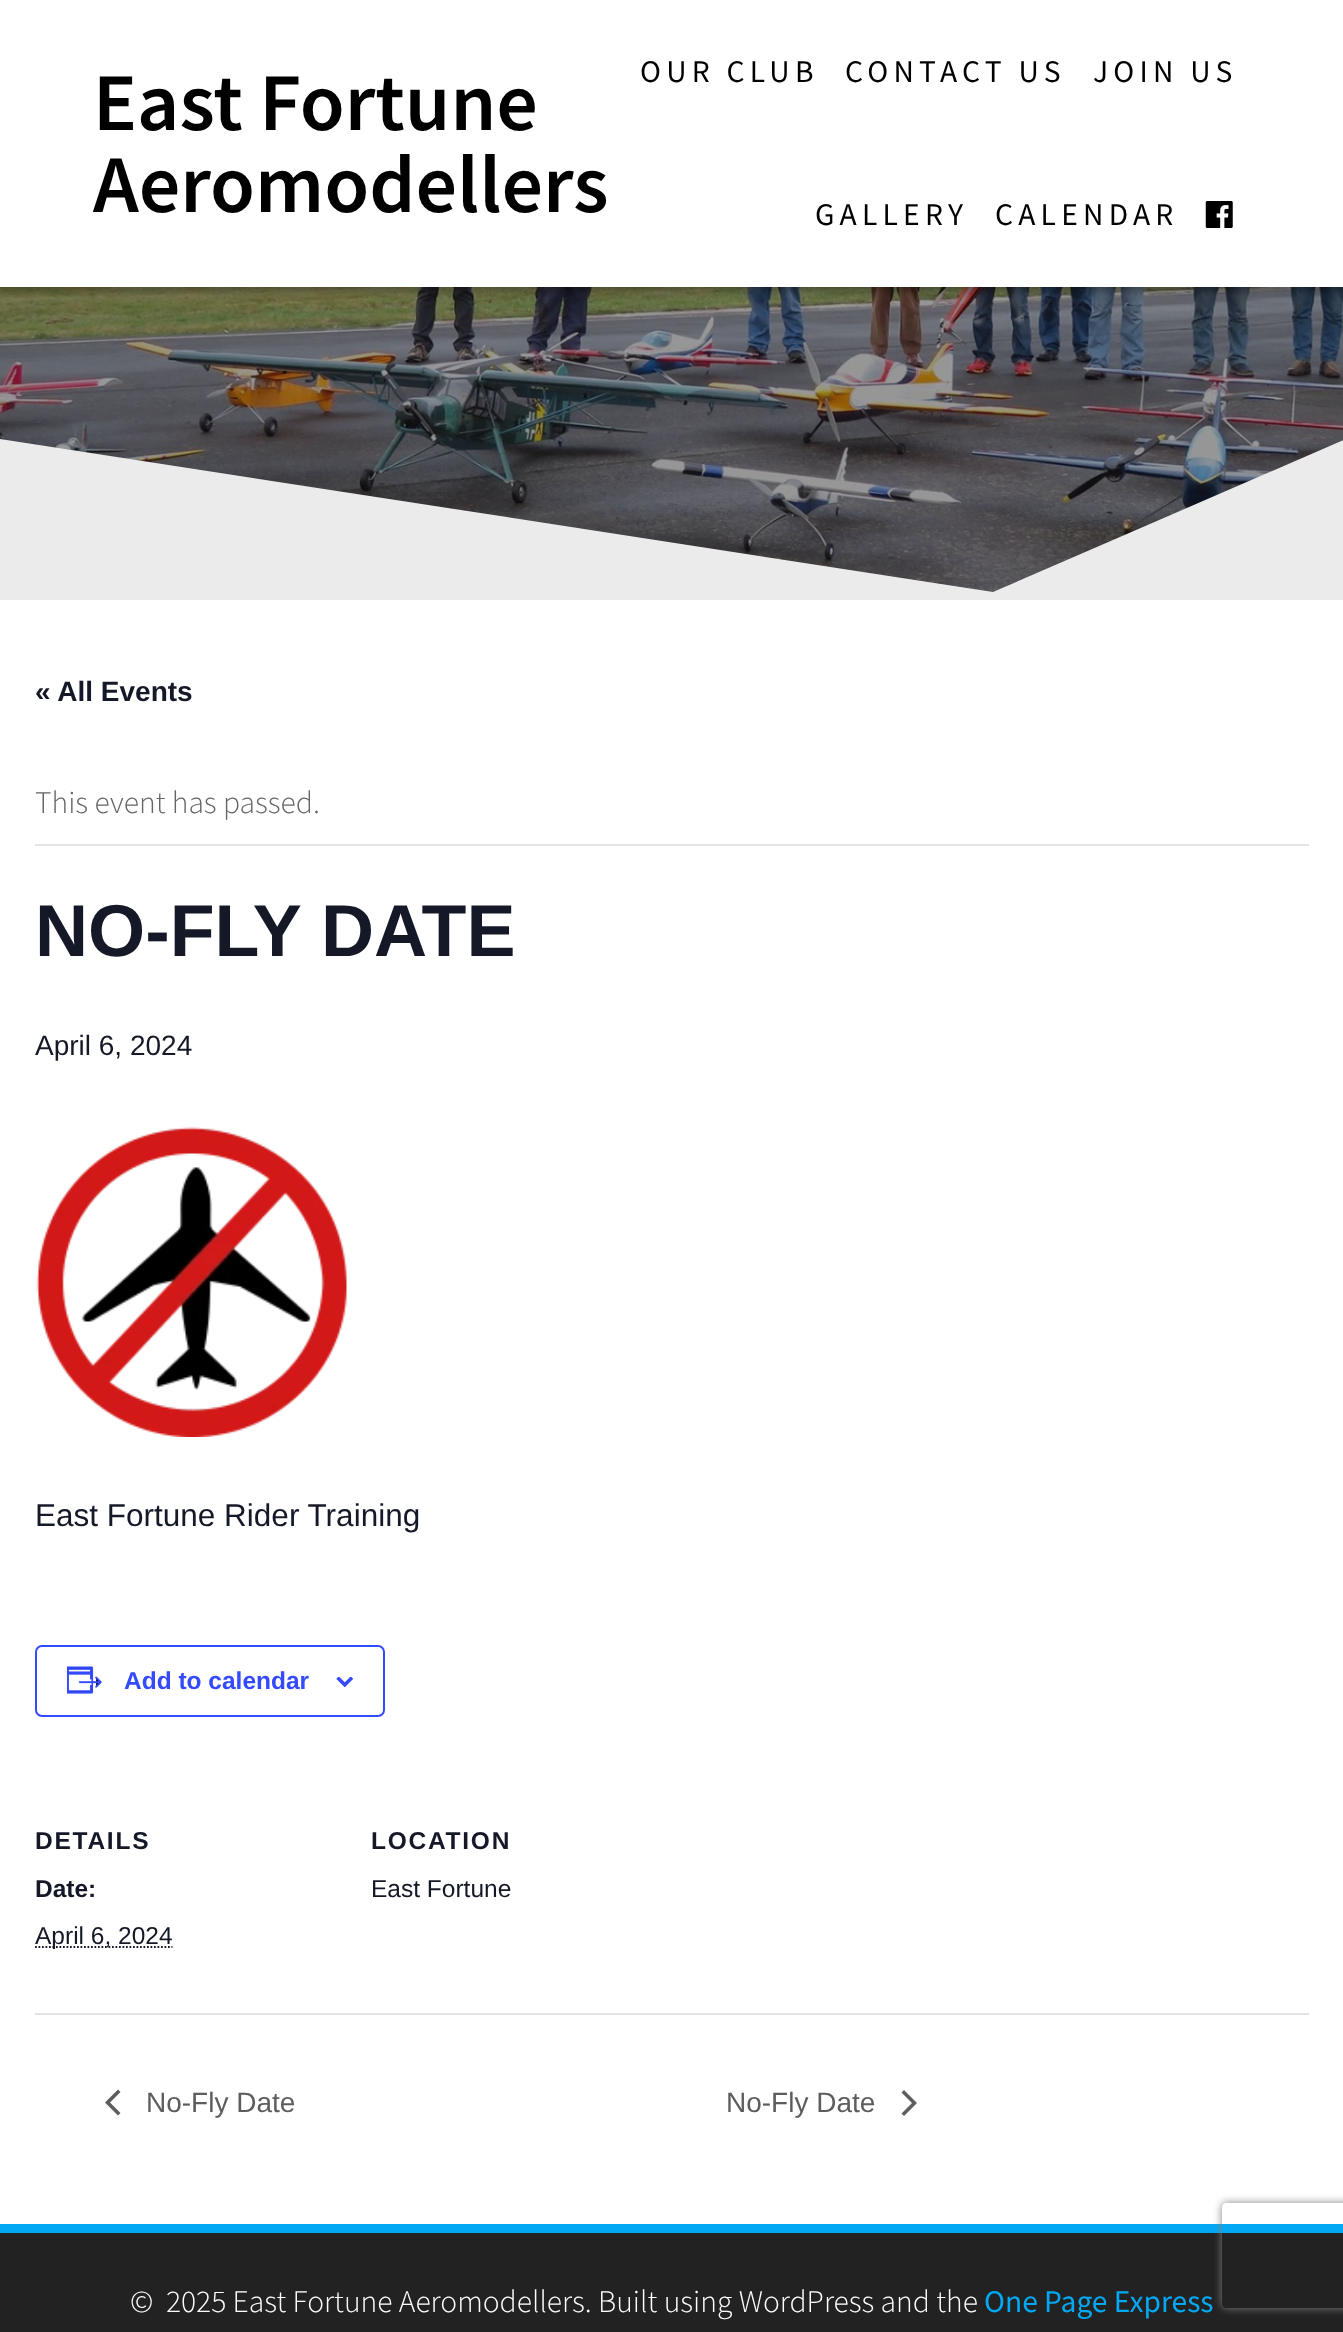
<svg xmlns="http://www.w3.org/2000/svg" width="1343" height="2332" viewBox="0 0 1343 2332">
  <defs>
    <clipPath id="clip1"><path d="M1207 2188H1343V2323H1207ZM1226 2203H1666C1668 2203 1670 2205 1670 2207V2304C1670 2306 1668 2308 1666 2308H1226C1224 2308 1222 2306 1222 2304V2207C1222 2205 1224 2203 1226 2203Z" clip-rule="evenodd"/></clipPath>
  </defs>
  <rect width="100%" height="100%" fill="rgb(255,255,255)"/>
  <image x="0" y="287" width="1343" height="305" href="pic2.png"/>
  <rect x="-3" y="-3" width="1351" height="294" fill="rgba(0,0,0,0.33)" filter="blur(4.5px)"/>
  <rect x="0" y="0" width="1343" height="287" fill="rgb(255,255,255)"/>
  <g font-family="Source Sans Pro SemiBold" font-size="82" font-weight="600" fill="rgb(0,0,0)">
    <text>
      <tspan x="93" y="130">East Fortune</tspan>
      <tspan x="93" y="212">Aeromodellers</tspan>
    </text>
  </g>
  <g font-family="Source Sans Pro" font-size="31.5" letter-spacing="5.25" fill="rgb(0,0,0)">
    <text x="640" y="82">OUR CLUB</text>
    <text x="845" y="82">CONTACT US</text>
    <text x="1093" y="82">JOIN US</text>
    <text x="815" y="225">GALLERY</text>
    <text x="995" y="225">CALENDAR</text>
  </g>
  <image x="1205" y="201" width="28" height="27" href="pic1.png"/>
  <path d="M993 592L0 439V600H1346V439Z" fill="rgb(235,235,235)"/>
  <text x="35" y="701" font-family="Liberation Sans" font-size="28" font-weight="bold" fill="rgb(20,24,39)">« All Events</text>
  <rect x="35" y="844" width="1274" height="2" fill="rgb(228,228,228)"/>
  <text x="35" y="813" font-family="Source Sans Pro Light" font-size="31.5" font-weight="300" fill="rgb(102,102,102)">This event has passed.</text>
  <text x="35" y="956" font-family="Liberation Sans" font-size="73.5" font-weight="bold" fill="rgb(20,24,39)">NO-FLY DATE</text>
  <text x="35" y="1055" font-family="Liberation Sans" font-size="28" fill="rgb(20,24,39)">April 6, 2024</text>
  <image x="36" y="1127" width="311" height="310" href="pic3.png"/>
  <text x="35" y="1526" font-family="Liberation Sans" font-size="31.5" fill="rgb(20,24,39)">East Fortune Rider Training</text>
  <rect x="36" y="1646" width="348" height="70" rx="6" fill="none" stroke="rgb(51,74,255)" stroke-width="2"/>
  <image x="67" y="1666" width="35" height="28" href="pic4.png"/>
  <text x="124" y="1689" font-family="Liberation Sans" font-size="24.5" font-weight="bold" fill="rgb(51,74,255)">Add to calendar</text>
  <image x="336" y="1677" width="18" height="10" href="pic5.png"/>
  <text x="35" y="1849" font-family="Liberation Sans" font-size="24.5" font-weight="bold" letter-spacing="1.75" fill="rgb(20,24,39)">DETAILS</text>
  <text x="35" y="1897" font-family="Liberation Sans" font-size="24.5" font-weight="bold" fill="rgb(20,24,39)">Date:</text>
  <path d="M35 1947H172.5" fill="none" stroke="rgb(20,24,39)" stroke-width="1.8" stroke-dasharray="1.75 1.75"/>
  <text x="35" y="1944" font-family="Liberation Sans" font-size="24.5" fill="rgb(20,24,39)">April 6, 2024</text>
  <text x="371" y="1849" font-family="Liberation Sans" font-size="24.5" font-weight="bold" letter-spacing="1.75" fill="rgb(20,24,39)">LOCATION</text>
  <text x="371" y="1897" font-family="Liberation Sans" font-size="24.5" fill="rgb(20,24,39)">East Fortune</text>
  <rect x="35" y="2013" width="1274" height="2" fill="rgb(228,228,228)"/>
  <path d="M120.5 2113L118 2115.5L105 2102.5L118 2089.5L120.5 2092L110 2102.5Z" fill="rgb(93,93,93)"/>
  <g font-family="Liberation Sans" font-size="28" fill="rgb(93,93,93)">
    <text x="146" y="2112">No-Fly Date</text>
    <text x="726" y="2112">No-Fly Date</text>
  </g>
  <path d="M901.5 2092.5L904 2090L917 2103L904 2116L901.5 2113.5L912 2103Z" fill="rgb(93,93,93)"/>
  <rect x="0" y="2233" width="1343" height="99" fill="rgb(34,34,34)"/>
  <rect x="0" y="2224" width="1343" height="9" fill="rgb(3,168,244)"/>
  <text x="130" y="2312" font-family="Source Sans Pro Light" font-size="31.5" font-weight="300" fill="rgb(255,255,255)" xml:space="preserve">©  2025 East Fortune Aeromodellers. Built using WordPress and the</text>
  <text x="984" y="2312" font-family="Source Sans Pro" font-size="31.5" fill="rgb(3,169,244)">One Page Express</text>
  <g clip-path="url(#clip1)">
    <rect x="1222" y="2203" width="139" height="105" rx="4" fill="rgb(128,128,128)" filter="blur(4.5px)"/>
  </g>
</svg>
